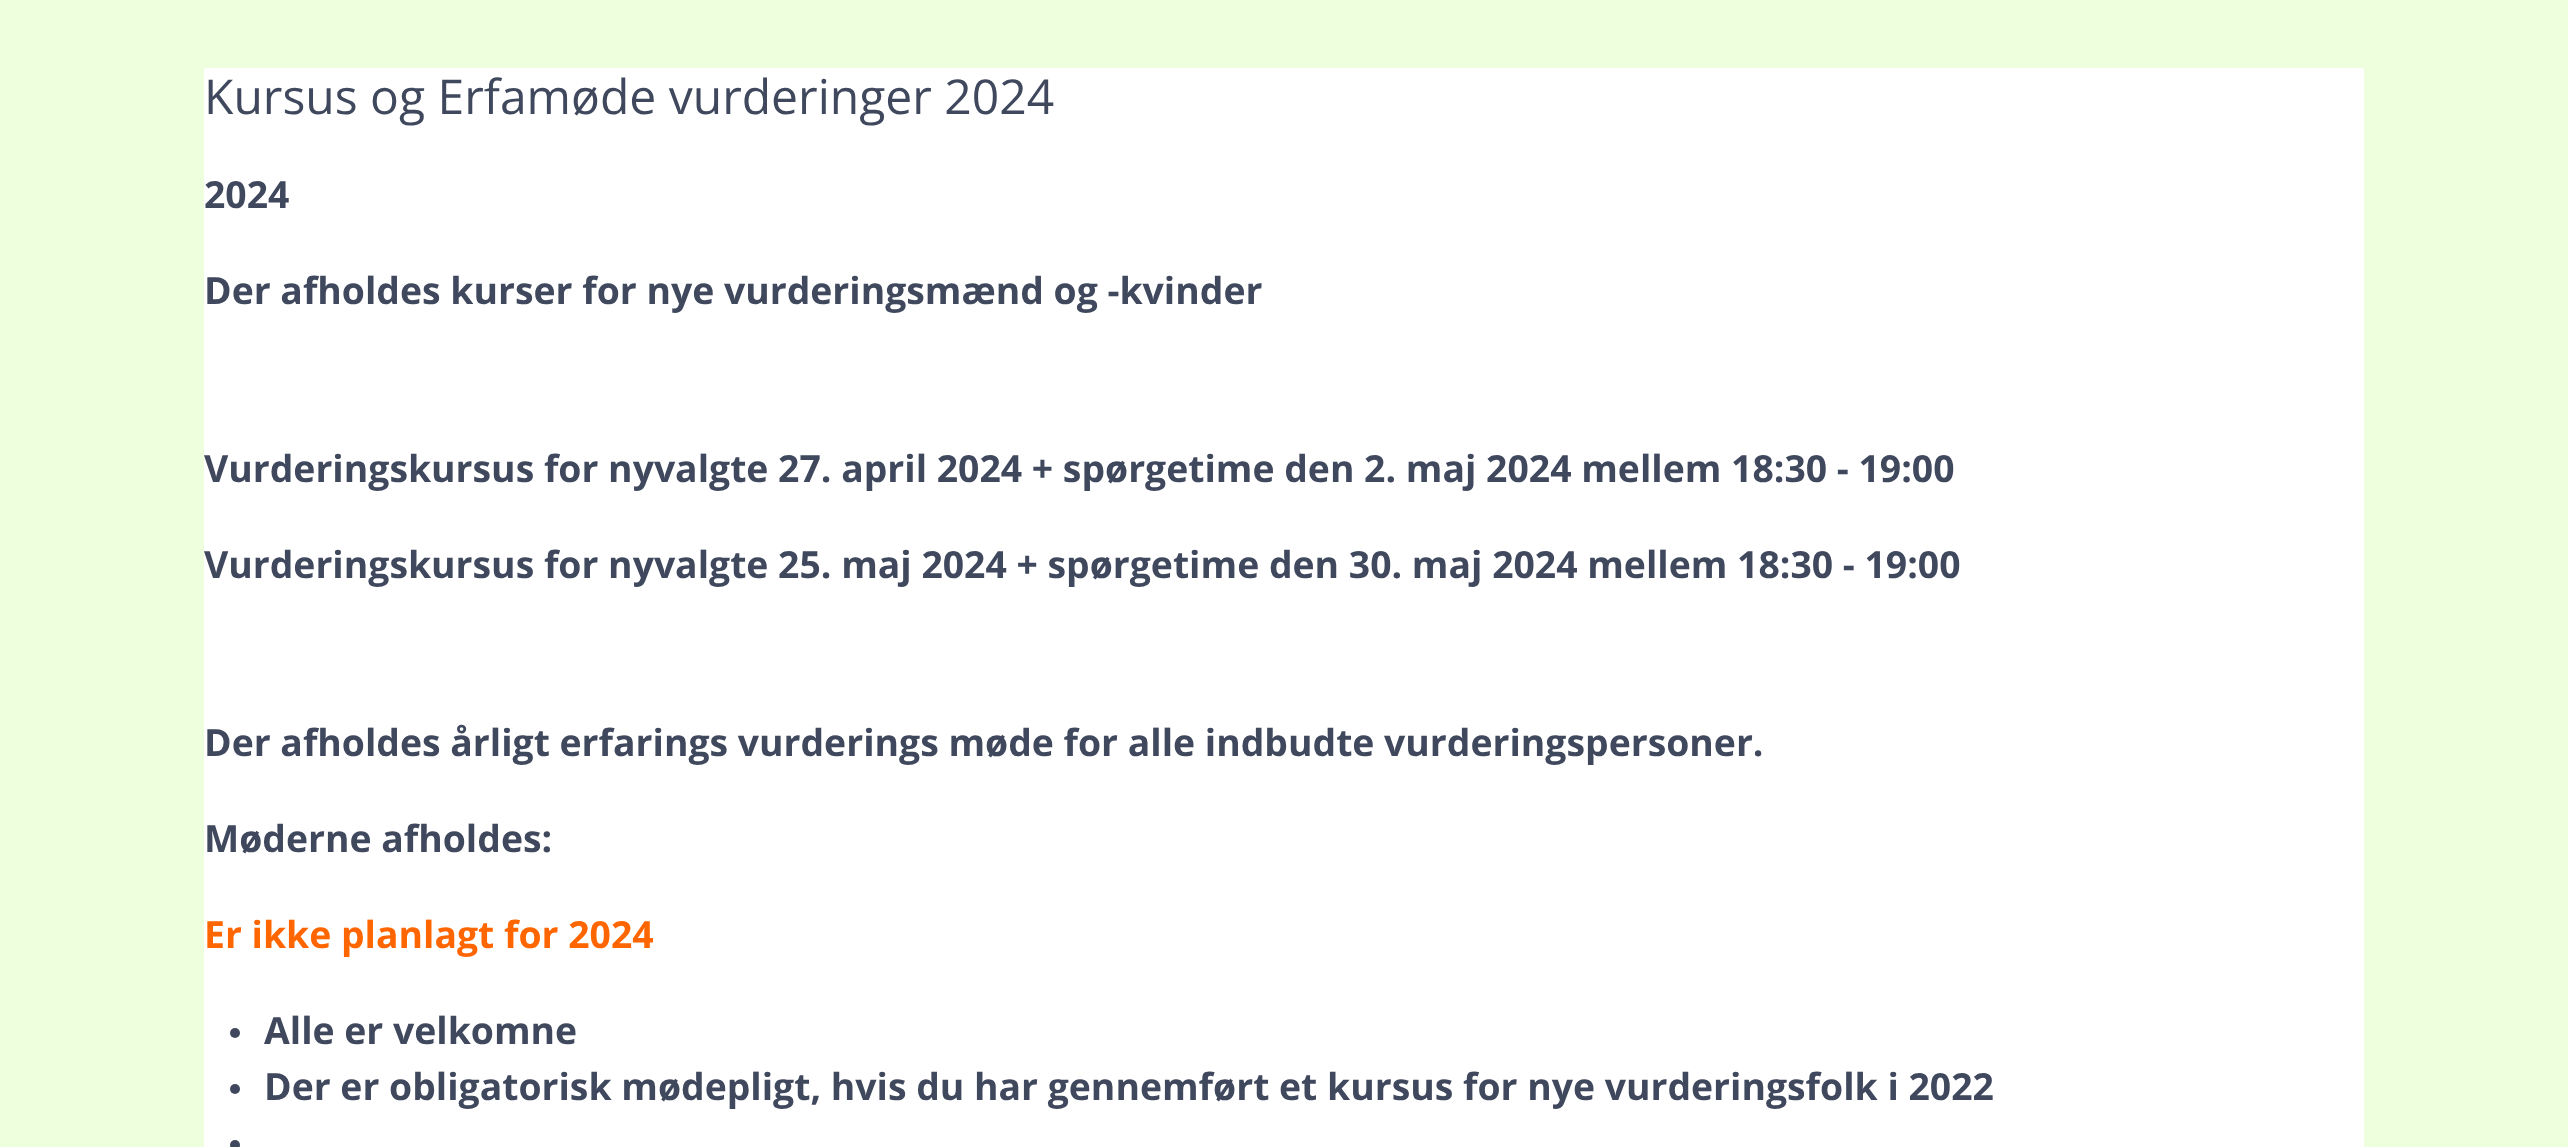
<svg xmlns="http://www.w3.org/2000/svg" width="2568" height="1147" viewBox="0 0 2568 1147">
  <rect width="100%" height="100%" fill="rgb(237,255,221)"/>
  <rect x="204" y="68" width="2160" height="1079" fill="rgb(255,255,255)"/>
  <text x="204" y="114" font-family="Open Sans" font-size="48" fill="rgb(63,72,93)">Kursus og Erfamøde vurderinger 2024</text>
  <g font-family="Open Sans" font-size="37.35" font-weight="bold" fill="rgb(63,72,93)">
    <text x="204" y="208">2024</text>
    <text x="204" y="304">Der afholdes kurser for nye vurderingsmænd og -kvinder</text>
    <text x="204" y="482">Vurderingskursus for nyvalgte 27. april 2024 + spørgetime den 2. maj 2024 mellem 18:30 - 19:00</text>
    <text x="204" y="578">Vurderingskursus for nyvalgte 25. maj 2024 + spørgetime den 30. maj 2024 mellem 18:30 - 19:00</text>
    <text x="204" y="756">Der afholdes årligt erfarings vurderings møde for alle indbudte vurderingspersoner.</text>
    <text x="204" y="852">Møderne afholdes:</text>
  </g>
  <text x="204" y="948" font-family="Open Sans" font-size="37.35" font-weight="bold" fill="rgb(255,102,0)">Er ikke planlagt for 2024</text>
  <circle cx="235" cy="1033" r="5" fill="rgb(63,72,93)"/>
  <text x="264" y="1044" font-family="Open Sans" font-size="37.35" font-weight="bold" fill="rgb(63,72,93)">Alle er velkomne</text>
  <circle cx="235" cy="1089" r="5" fill="rgb(63,72,93)"/>
  <text x="264" y="1100" font-family="Open Sans" font-size="37.35" font-weight="bold" fill="rgb(63,72,93)">Der er obligatorisk mødepligt, hvis du har gennemført et kursus for nye vurderingsfolk i 2022</text>
  <circle cx="235" cy="1145" r="5" fill="rgb(63,72,93)"/>
</svg>
